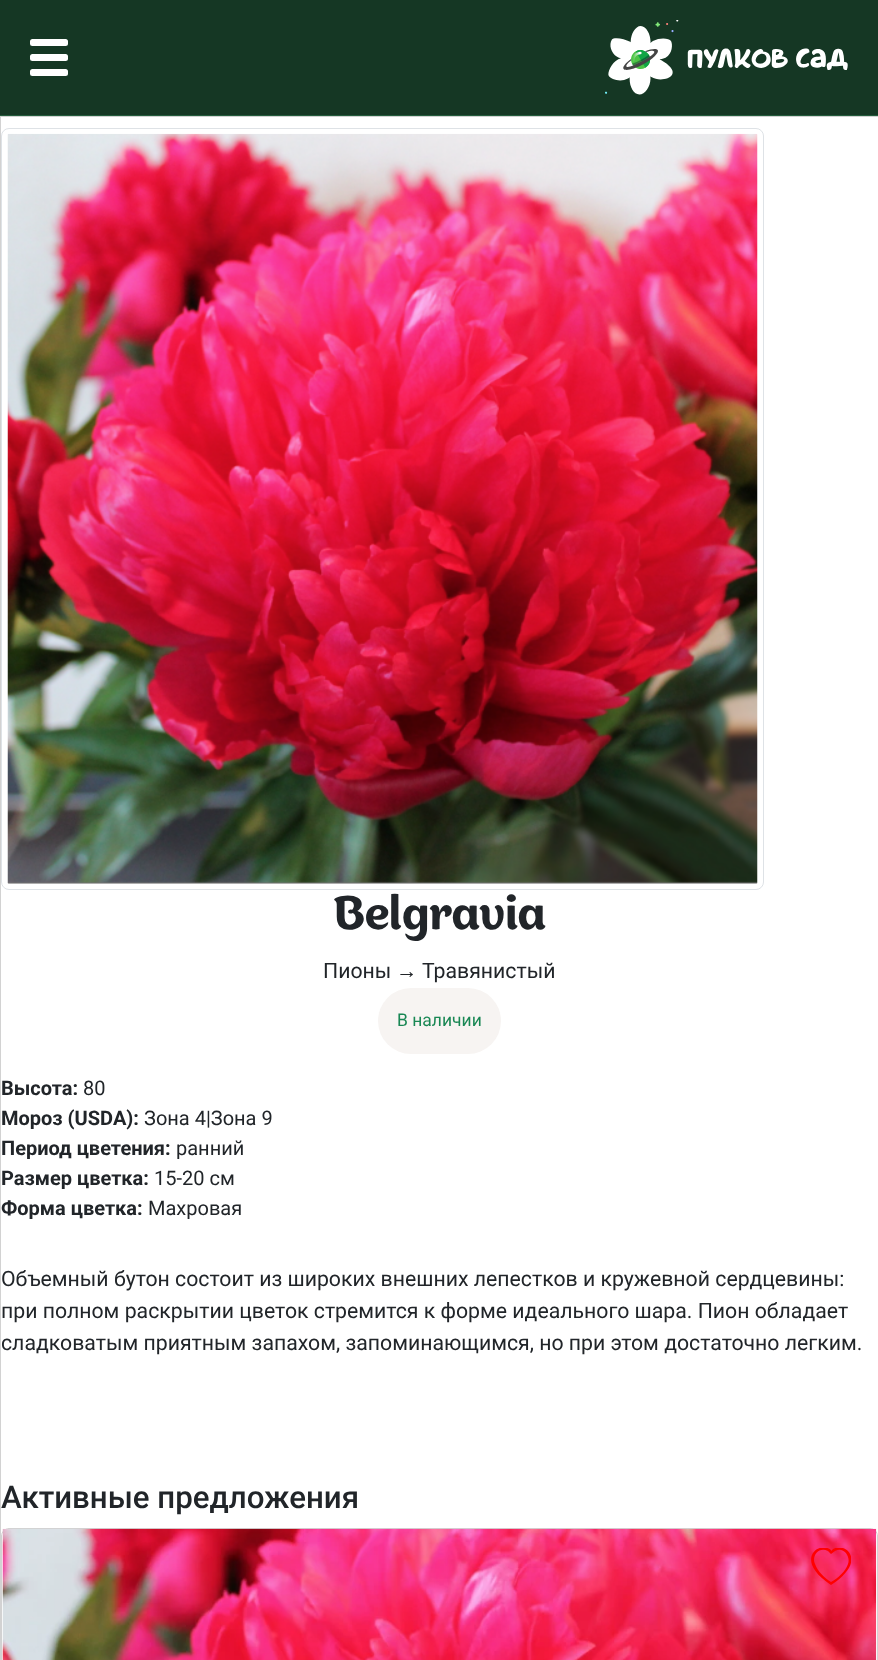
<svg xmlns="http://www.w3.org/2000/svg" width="878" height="1660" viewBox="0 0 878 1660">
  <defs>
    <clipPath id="clip1"><rect x="811" y="1548" width="40" height="40"/></clipPath>
  </defs>
  <rect width="100%" height="100%" fill="rgb(35,92,60)"/>
  <rect x="0" y="0" width="878" height="115" fill="rgb(21,55,36)"/>
  <rect x="30" y="39" width="38" height="7" rx="2.5" fill="rgb(255,255,255)"/>
  <rect x="30" y="54" width="38" height="7" rx="2.5" fill="rgb(255,255,255)"/>
  <rect x="30" y="69" width="38" height="7" rx="2.5" fill="rgb(255,255,255)"/>
  <image x="605" y="20" width="243" height="75" href="pic1.png"/>
  <rect x="0.5" y="116.5" width="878" height="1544" fill="rgb(255,255,255)" stroke="rgb(210,210,210)"/>
  <rect x="1.5" y="128.5" width="762" height="761" rx="7.5" fill="none" stroke="rgb(222,226,230)"/>
  <image x="7" y="133" width="751" height="751" href="pic2.png"/>
  <text x="333" y="929" font-family="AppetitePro" font-size="46.5" font-weight="500" fill="rgb(33,37,41)">Belgravia</text>
  <text x="323" y="978" font-family="Roboto" font-size="21.25" fill="rgb(33,37,41)">Пионы</text>
  <text x="396" y="978" font-family="Liberation Sans" font-size="21.25" fill="rgb(33,37,41)">→</text>
  <text x="422" y="978" font-family="Roboto" font-size="21.25" fill="rgb(33,37,41)">Травянистый</text>
  <rect x="378" y="988" width="123" height="66" rx="33" fill="rgb(247,244,242)"/>
  <text x="397" y="1026" font-family="Roboto" font-size="17.5" fill="rgb(25,135,84)">В наличии</text>
  <text x="1" y="1095" font-family="Roboto" font-size="20" font-weight="bold" fill="rgb(33,37,41)">Высота:</text>
  <text x="83" y="1095" font-family="Roboto" font-size="20" fill="rgb(33,37,41)">80</text>
  <text x="1" y="1125" font-family="Roboto" font-size="20" font-weight="bold" fill="rgb(33,37,41)">Мороз (USDA):</text>
  <text x="144" y="1125" font-family="Roboto" font-size="20" fill="rgb(33,37,41)">Зона 4|Зона 9</text>
  <text x="1" y="1155" font-family="Roboto" font-size="20" font-weight="bold" fill="rgb(33,37,41)">Период цветения:</text>
  <text x="176" y="1155" font-family="Roboto" font-size="20" fill="rgb(33,37,41)">ранний</text>
  <text x="1" y="1185" font-family="Roboto" font-size="20" font-weight="bold" fill="rgb(33,37,41)">Размер цветка:</text>
  <text x="154" y="1185" font-family="Roboto" font-size="20" fill="rgb(33,37,41)">15-20 см</text>
  <text x="1" y="1215" font-family="Roboto" font-size="20" font-weight="bold" fill="rgb(33,37,41)">Форма цветка:</text>
  <text x="148" y="1215" font-family="Roboto" font-size="20" fill="rgb(33,37,41)">Махровая</text>
  <g font-family="Roboto" font-size="21.25" fill="rgb(33,37,41)">
    <text>
      <tspan x="1" y="1286">Объемный бутон состоит из широких внешних лепестков и кружевной сердцевины:</tspan>
      <tspan x="1" y="1318">при полном раскрытии цветок стремится к форме идеального шара. Пион обладает</tspan>
      <tspan x="1" y="1350">сладковатым приятным запахом, запоминающимся, но при этом достаточно легким.</tspan>
    </text>
  </g>
  <text x="1" y="1508" font-family="Roboto" font-size="31.25" font-weight="500" fill="rgb(33,37,41)">Активные предложения</text>
  <path d="M9 1528.5H870C874 1528.5 877.5 1532 877.5 1536V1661C877.5 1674.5 866.5 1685.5 853 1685.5H26C12.5 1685.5 1.5 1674.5 1.5 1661V1536C1.5 1532 5 1528.5 9 1528.5Z" fill="none" stroke="rgb(210,210,210)"/>
  <image x="2" y="1528" width="875" height="132" href="pic3.png"/>
  <g clip-path="url(#clip1)">
    <path d="M831 1554L828 1551C819 1546 811 1556 815 1564C818 1572 825 1578 831 1582C838 1578 845 1572 848 1564C851 1556 843 1546 835 1551ZM831 1585C793 1560 819 1540 831 1550V1551L832 1550C843 1540 870 1560 831 1585Z" fill="rgb(255,0,0)"/>
  </g>
</svg>
